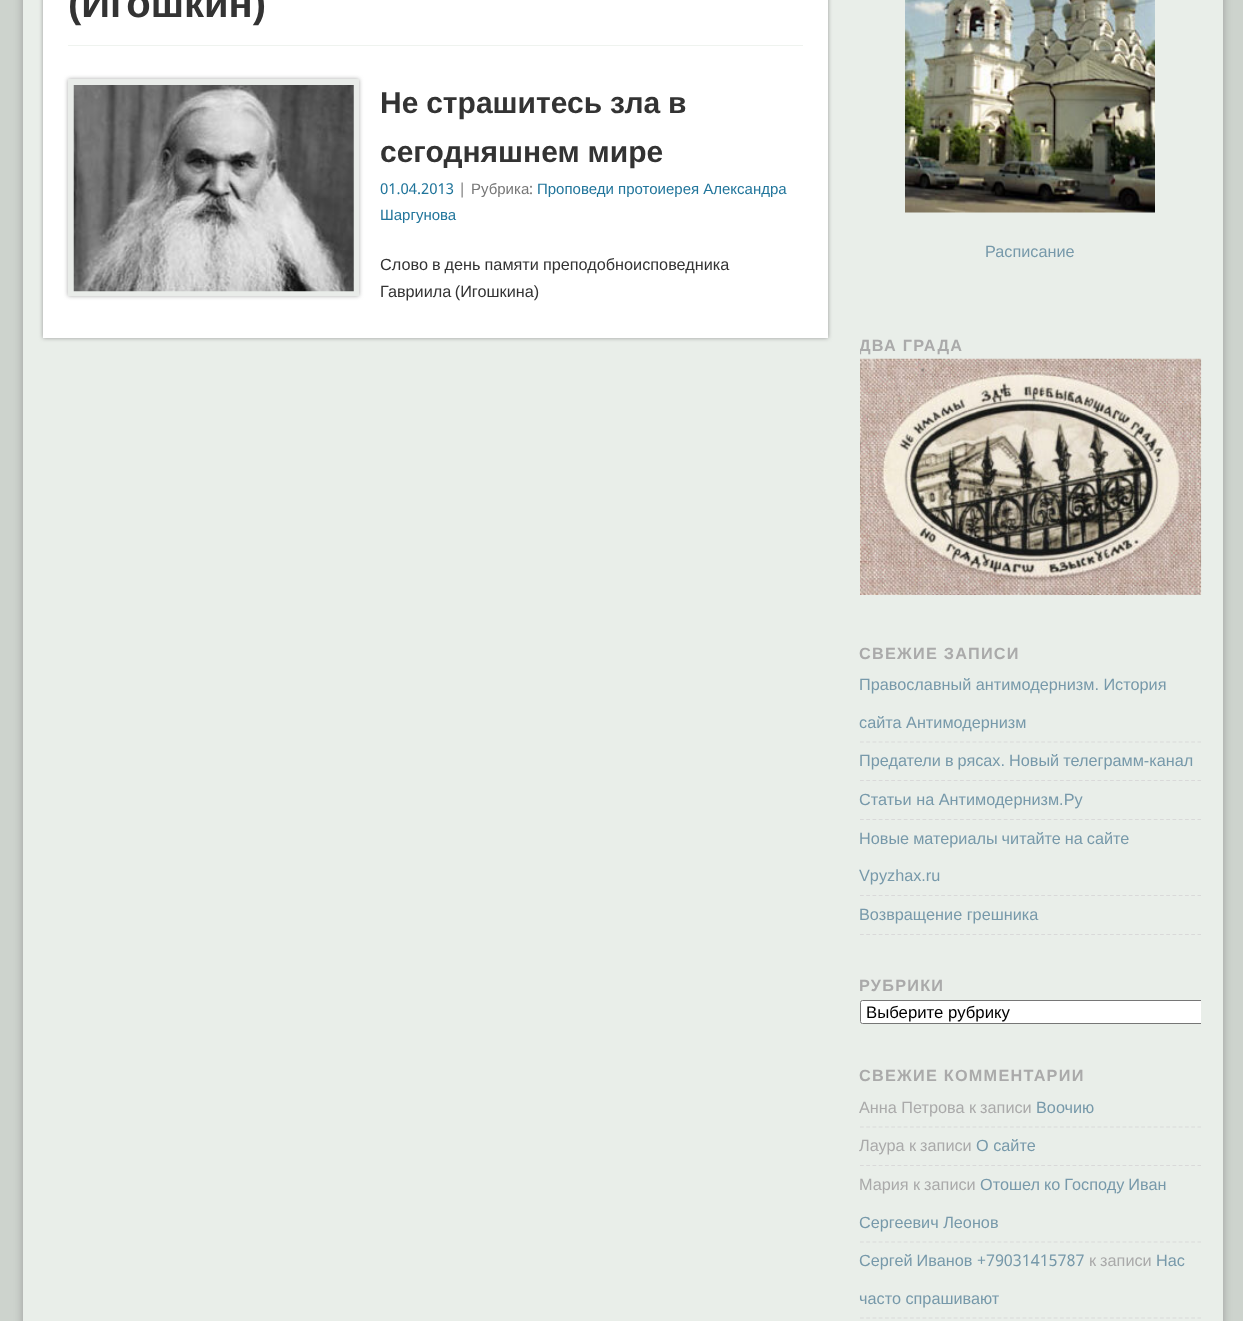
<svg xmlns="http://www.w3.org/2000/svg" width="1243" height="1321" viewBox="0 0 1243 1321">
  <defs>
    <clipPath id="clip1"><rect x="860" y="333" width="341" height="270"/></clipPath>
    <clipPath id="clip2"><rect x="860" y="666" width="341" height="269"/></clipPath>
    <clipPath id="clip3"><rect x="860" y="973" width="341" height="52"/></clipPath>
  </defs>
  <rect width="100%" height="100%" fill="rgb(205,211,205)"/>
  <rect x="23" y="-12" width="1200" height="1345" fill="rgb(153,153,153)" filter="blur(4px)"/>
  <rect x="23" y="0" width="1200" height="1321" fill="rgb(233,238,233)"/>
  <rect x="43" y="-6" width="785" height="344" fill="rgb(153,153,153)" filter="blur(2px)"/>
  <rect x="43" y="0" width="785" height="338" fill="rgb(255,255,255)"/>
  <text x="68" y="17" font-family="Liberation Sans" font-size="40" font-weight="bold" fill="rgb(51,51,51)">(Игошкин)</text>
  <rect x="68" y="45" width="735" height="1" fill="rgb(239,243,239)"/>
  <rect x="68" y="79" width="291" height="217" fill="rgb(170,170,170)" filter="blur(2px)"/>
  <rect x="68" y="79" width="291" height="217" fill="rgb(233,236,233)"/>
  <image x="73" y="85" width="281" height="207" href="pic1.png"/>
  <g font-family="Liberation Sans" font-size="30" font-weight="bold" fill="rgb(51,51,51)">
    <text>
      <tspan x="380" y="113" word-spacing="-0.5">Не страшитесь зла в</tspan>
      <tspan x="380" y="162" word-spacing="-0.5">сегодняшнем мире</tspan>
    </text>
  </g>
  <text x="380" y="194" font-family="Droid Sans" font-size="15" fill="rgb(33,117,155)">01.04.2013</text>
  <text x="458" y="194" font-family="Droid Sans" font-size="15" fill="rgb(119,119,119)">|</text>
  <text x="471" y="194" font-family="Liberation Sans" font-size="15" fill="rgb(119,119,119)">Рубрика</text>
  <text x="529" y="194" font-family="Droid Sans" font-size="15" fill="rgb(119,119,119)">:</text>
  <g font-family="Liberation Sans" font-size="15" fill="rgb(33,117,155)">
    <text x="537" y="194">Проповеди протоиерея Александра</text>
    <text x="380" y="220">Шаргунова</text>
  </g>
  <g font-family="Liberation Sans" font-size="16.25" fill="rgb(51,51,51)">
    <text>
      <tspan x="380" y="270" word-spacing="-0.5">Слово в день памяти преподобноисповедника</tspan>
      <tspan x="380" y="297" word-spacing="-1">Гавриила (Игошкина)</tspan>
    </text>
  </g>
  <image x="905" y="0" width="250" height="213" href="pic2.png"/>
  <text x="985" y="257" font-family="Liberation Sans" font-size="16.25" fill="rgb(119,153,170)">Расписание</text>
  <g clip-path="url(#clip1)">
    <text x="859" y="351" font-family="Liberation Sans" font-size="16.25" font-weight="bold" letter-spacing="1.25" fill="rgb(170,170,170)">ДВА ГРАДА</text>
  </g>
  <image x="860" y="358" width="342" height="237" href="pic3.png"/>
  <text x="859" y="659" font-family="Liberation Sans" font-size="16.25" font-weight="bold" letter-spacing="1.25" fill="rgb(170,170,170)">СВЕЖИЕ ЗАПИСИ</text>
  <path d="M860 742H1201" fill="none" stroke="rgb(217,217,217)" stroke-width="1.2" stroke-dasharray="3.75 2.5"/>
  <g font-family="Liberation Sans" font-size="16.25" fill="rgb(119,153,170)">
    <text x="859" y="690">Православный антимодернизм. История</text>
    <text x="859" y="728">сайта Антимодернизм</text>
  </g>
  <path d="M860 780.5H1201" fill="none" stroke="rgb(217,217,217)" stroke-width="1.2" stroke-dasharray="3.75 2.5"/>
  <text x="859" y="766" word-spacing="-0.5" font-family="Liberation Sans" font-size="16.25" fill="rgb(119,153,170)">Предатели в рясах. Новый телеграмм-канал</text>
  <path d="M860 819.5H1201" fill="none" stroke="rgb(217,217,217)" stroke-width="1.2" stroke-dasharray="3.75 2.5"/>
  <text x="859" y="805" font-family="Liberation Sans" font-size="16.25" fill="rgb(119,153,170)">Статьи на Антимодернизм.Ру</text>
  <path d="M860 895.5H1201" fill="none" stroke="rgb(217,217,217)" stroke-width="1.2" stroke-dasharray="3.75 2.5"/>
  <g font-family="Liberation Sans" font-size="16.25" fill="rgb(119,153,170)">
    <text x="859" y="844" word-spacing="-0.5">Новые материалы читайте на сайте</text>
    <text x="859" y="881">Vpyzhax.ru</text>
  </g>
  <g clip-path="url(#clip2)">
    <path d="M860 934.5H1201" fill="none" stroke="rgb(217,217,217)" stroke-width="1.2" stroke-dasharray="3.75 2.5"/>
  </g>
  <text x="859" y="920" font-family="Liberation Sans" font-size="16.25" fill="rgb(119,153,170)">Возвращение грешника</text>
  <text x="859" y="991" font-family="Liberation Sans" font-size="16.25" font-weight="bold" letter-spacing="1.25" fill="rgb(170,170,170)">РУБРИКИ</text>
  <path d="M862.5 1000H1201V1024H862.5C861 1024 860 1023 860 1021.5V1002.5C860 1001 861 1000 862.5 1000Z" fill="rgb(255,255,255)"/>
  <g clip-path="url(#clip3)">
    <rect x="860.5" y="1000.5" width="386" height="23" rx="2" fill="none" stroke="rgb(118,118,118)"/>
  </g>
  <text x="866" y="1018" font-family="Liberation Sans" font-size="16.75" fill="rgb(0,0,0)">Выберите рубрику</text>
  <text x="859" y="1081" font-family="Liberation Sans" font-size="16.25" font-weight="bold" letter-spacing="1.25" fill="rgb(170,170,170)">СВЕЖИЕ КОММЕНТАРИИ</text>
  <path d="M860 1127H1201" fill="none" stroke="rgb(217,217,217)" stroke-width="1.2" stroke-dasharray="3.75 2.5"/>
  <g font-family="Liberation Sans" font-size="16.25" fill="rgb(170,170,170)">
    <text x="859" y="1113">Анна Петрова</text>
    <text x="969" y="1113" word-spacing="-0.5">к записи</text>
  </g>
  <text x="1036" y="1113" font-family="Liberation Sans" font-size="16.25" fill="rgb(119,153,170)">Воочию</text>
  <path d="M860 1165.5H1201" fill="none" stroke="rgb(217,217,217)" stroke-width="1.2" stroke-dasharray="3.75 2.5"/>
  <g font-family="Liberation Sans" font-size="16.25" fill="rgb(170,170,170)">
    <text x="859" y="1151">Лаура</text>
    <text x="909" y="1151" word-spacing="-0.5">к записи</text>
  </g>
  <text x="976" y="1151" font-family="Liberation Sans" font-size="16.25" fill="rgb(119,153,170)">О сайте</text>
  <path d="M860 1242H1201" fill="none" stroke="rgb(217,217,217)" stroke-width="1.2" stroke-dasharray="3.75 2.5"/>
  <g font-family="Liberation Sans" font-size="16.25" fill="rgb(170,170,170)">
    <text x="859" y="1190">Мария</text>
    <text x="913" y="1190" word-spacing="-0.5">к записи</text>
  </g>
  <g font-family="Liberation Sans" font-size="16.25" fill="rgb(119,153,170)">
    <text x="980" y="1190" word-spacing="-0.5">Отошел ко Господу Иван</text>
    <text x="859" y="1228">Сергеевич Леонов</text>
  </g>
  <path d="M860 1318H1201" fill="none" stroke="rgb(217,217,217)" stroke-width="1.2" stroke-dasharray="3.75 2.5"/>
  <text x="859" y="1266" word-spacing="-0.5" font-family="Liberation Sans" font-size="16.25" fill="rgb(119,153,170)">Сергей Иванов</text>
  <text x="977" y="1266" font-family="Droid Sans" font-size="16.25" fill="rgb(119,153,170)">+79031415787</text>
  <text x="1089" y="1266" word-spacing="-0.5" font-family="Liberation Sans" font-size="16.25" fill="rgb(170,170,170)">к записи</text>
  <g font-family="Liberation Sans" font-size="16.25" fill="rgb(119,153,170)">
    <text x="1156" y="1266">Нас</text>
    <text x="859" y="1304">часто спрашивают</text>
  </g>
</svg>
